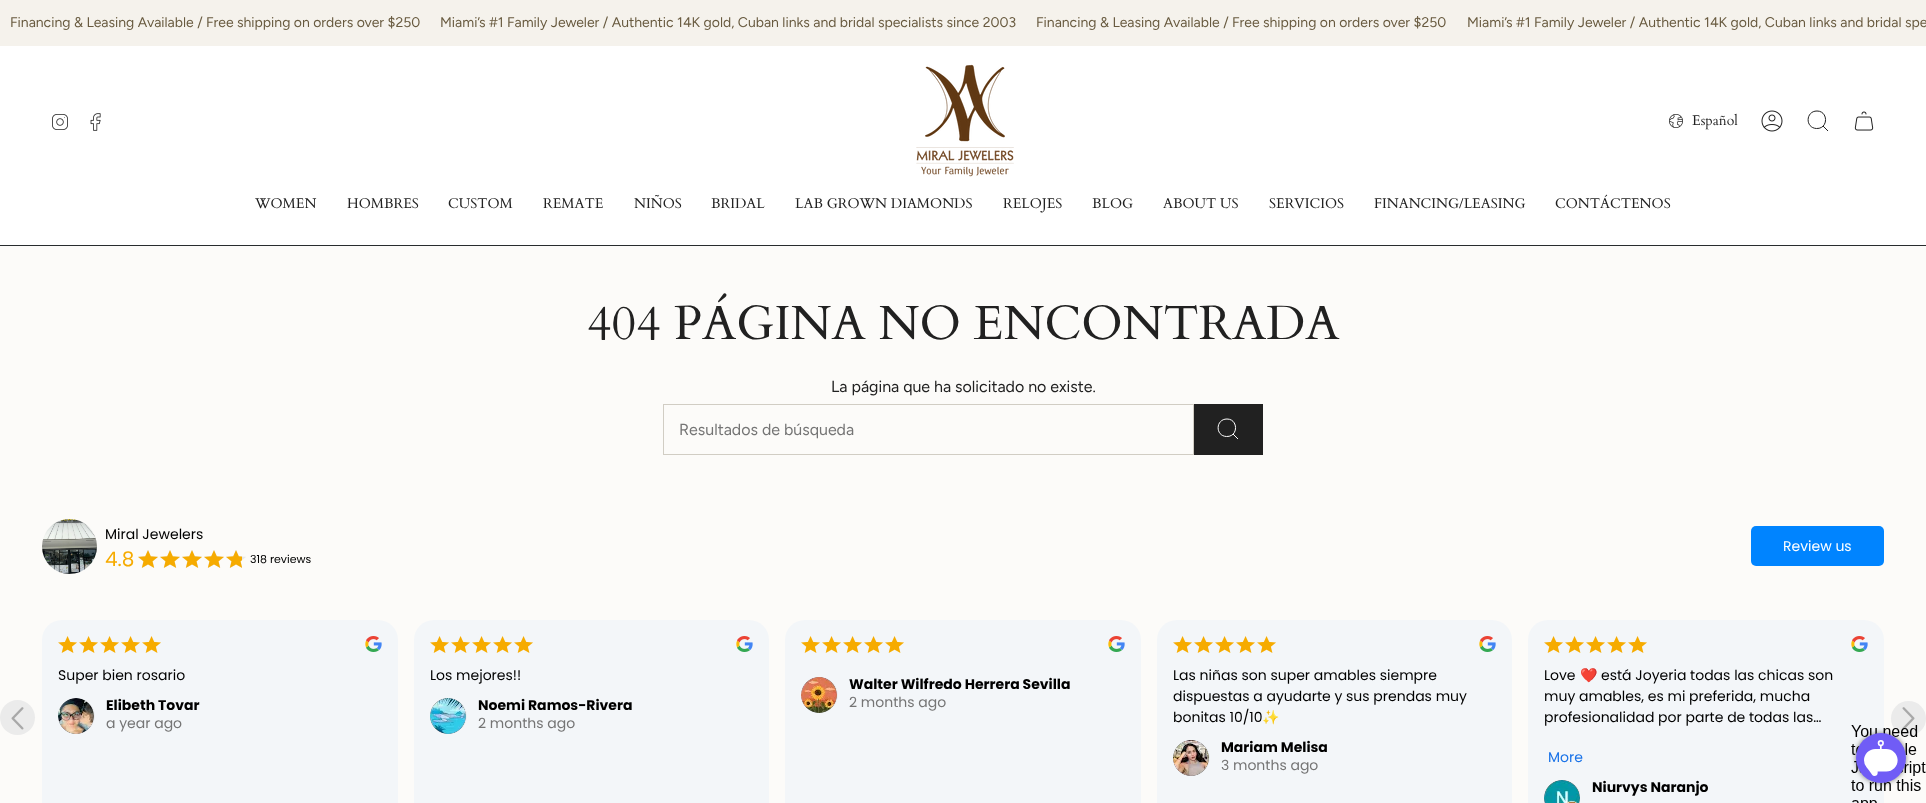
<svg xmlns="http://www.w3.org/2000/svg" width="1926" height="803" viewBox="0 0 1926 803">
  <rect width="100%" height="100%" fill="rgb(252,251,249)"/>
  <rect x="0" y="0" width="1926" height="46" fill="rgb(245,242,236)"/>
  <g font-family="Figtree" font-size="14" fill="rgb(104,90,63)">
    <text x="10" y="27">Financing &amp; Leasing Available / Free shipping on orders over $250</text>
    <text x="440" y="27">Miami’s #1 Family Jeweler / Authentic 14K gold, Cuban links and bridal specialists since 2003</text>
    <text x="1036" y="27">Financing &amp; Leasing Available / Free shipping on orders over $250</text>
    <text x="1467" y="27">Miami’s #1 Family Jeweler / Authentic 14K gold, Cuban links and bridal spe</text>
  </g>
  <rect x="0" y="46" width="1926" height="199" fill="rgb(255,255,255)"/>
  <image x="52" y="114" width="16" height="16" href="pic1.png"/>
  <image x="90" y="113" width="11" height="18" href="pic2.png"/>
  <image x="916" y="64" width="98" height="113" href="pic3.png"/>
  <image x="1669" y="114" width="14" height="14" href="pic4.png"/>
  <text x="1692" y="125" font-family="Cardo" font-size="14" fill="rgb(33,33,33)">Español</text>
  <image x="1761" y="110" width="22" height="22" href="pic5.png"/>
  <path d="M1817 111C1828.5 111 1828.5 129 1816.5 128.5C1805 128 1805.5 111 1817 111ZM1823 126L1828 131" fill="none" stroke="rgb(33,33,33)"/>
  <image x="1854" y="111" width="20" height="20" href="pic6.png"/>
  <g font-family="Cardo" font-size="14" fill="rgb(33,33,33)">
    <text x="255" y="208">WOMEN</text>
    <text x="347" y="208">HOMBRES</text>
    <text x="448" y="208">CUSTOM</text>
    <text x="543" y="208">REMATE</text>
    <text x="634" y="208">NIÑOS</text>
    <text x="711" y="208">BRIDAL</text>
    <text x="795" y="208">LAB GROWN DIAMONDS</text>
    <text x="1003" y="208">RELOJES</text>
    <text x="1092" y="208">BLOG</text>
    <text x="1163" y="208">ABOUT US</text>
    <text x="1269" y="208">SERVICIOS</text>
    <text x="1374" y="208">FINANCING/LEASING</text>
    <text x="1555" y="208">CONTÁCTENOS</text>
  </g>
  <rect x="0" y="245" width="1926" height="1" fill="rgb(40,44,46)"/>
  <text x="587" y="339" font-family="Cardo" font-size="48" fill="rgb(33,33,33)">404 PÁGINA NO ENCONTRADA</text>
  <text x="831" y="392" font-family="Figtree" font-size="16" fill="rgb(33,33,33)">La página que ha solicitado no existe.</text>
  <rect x="663.5" y="404.5" width="530" height="50" fill="none" stroke="rgb(209,205,196)"/>
  <text x="679" y="435" font-family="Figtree" font-size="16" fill="rgb(117,117,117)">Resultados de búsqueda</text>
  <rect x="1194" y="404" width="69" height="51" fill="rgb(33,33,33)"/>
  <path d="M1227 419C1238.5 419 1238.5 437 1226.5 436.5C1215 436 1215.5 419 1227 419ZM1233 434L1238 439" fill="none" stroke="rgb(255,255,255)"/>
  <image x="42" y="519" width="55" height="55" href="pic7.png"/>
  <text x="105" y="539" font-family="Poppins" font-size="14" fill="rgb(0,0,0)">Miral Jewelers</text>
  <text x="105" y="566" font-family="Poppins" font-size="20" fill="rgb(246,171,0)">4.8</text>
  <image x="138" y="550" width="20" height="18" href="pic8.png"/>
  <image x="160" y="550" width="20" height="18" href="pic8.png"/>
  <image x="182" y="550" width="20" height="18" href="pic8.png"/>
  <image x="204" y="550" width="20" height="18" href="pic8.png"/>
  <image x="226" y="550" width="20" height="18" href="pic8.png"/>
  <image x="138" y="550" width="20" height="18" href="pic9.png"/>
  <image x="160" y="550" width="20" height="18" href="pic9.png"/>
  <image x="182" y="550" width="20" height="18" href="pic9.png"/>
  <image x="204" y="550" width="20" height="18" href="pic9.png"/>
  <image x="226" y="550" width="16" height="18" href="pic10.png"/>
  <text x="250" y="563" font-family="Poppins" font-size="11" fill="rgb(0,0,0)">318 reviews</text>
  <rect x="1751" y="526" width="133" height="40" rx="5" fill="rgb(0,132,255)"/>
  <text x="1783" y="551" font-family="Poppins" font-size="14" fill="rgb(255,255,255)">Review us</text>
  <rect x="42" y="620" width="356" height="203" rx="20" fill="rgb(243,246,249)"/>
  <image x="58" y="636" width="19" height="17" href="pic11.png"/>
  <image x="79" y="636" width="19" height="17" href="pic11.png"/>
  <image x="100" y="636" width="19" height="17" href="pic11.png"/>
  <image x="121" y="636" width="19" height="17" href="pic11.png"/>
  <image x="142" y="636" width="19" height="17" href="pic11.png"/>
  <image x="365" y="636" width="17" height="16" href="pic12.png"/>
  <text x="58" y="680" font-family="Poppins" font-size="14" fill="rgb(0,0,0)">Super bien rosario</text>
  <image x="58" y="698" width="37" height="36" href="pic13.png"/>
  <text x="106" y="710" font-family="Poppins" font-size="14" font-weight="bold" fill="rgb(0,0,0)">Elibeth Tovar</text>
  <text x="106" y="728" font-family="Poppins" font-size="14" fill="rgb(117,117,117)">a year ago</text>
  <rect x="414" y="620" width="355" height="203" rx="20" fill="rgb(243,246,249)"/>
  <image x="430" y="636" width="19" height="17" href="pic11.png"/>
  <image x="451" y="636" width="19" height="17" href="pic11.png"/>
  <image x="472" y="636" width="19" height="17" href="pic11.png"/>
  <image x="493" y="636" width="19" height="17" href="pic11.png"/>
  <image x="514" y="636" width="19" height="17" href="pic11.png"/>
  <image x="736" y="636" width="17" height="16" href="pic12.png"/>
  <text x="430" y="680" font-family="Poppins" font-size="14" fill="rgb(0,0,0)">Los mejores!!</text>
  <image x="430" y="698" width="37" height="36" href="pic14.png"/>
  <text x="478" y="710" font-family="Poppins" font-size="14" font-weight="bold" fill="rgb(0,0,0)">Noemi Ramos-Rivera</text>
  <text x="478" y="728" font-family="Poppins" font-size="14" fill="rgb(117,117,117)">2 months ago</text>
  <rect x="785" y="620" width="356" height="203" rx="20" fill="rgb(243,246,249)"/>
  <image x="801" y="636" width="19" height="17" href="pic11.png"/>
  <image x="822" y="636" width="19" height="17" href="pic11.png"/>
  <image x="843" y="636" width="19" height="17" href="pic11.png"/>
  <image x="864" y="636" width="19" height="17" href="pic11.png"/>
  <image x="885" y="636" width="19" height="17" href="pic11.png"/>
  <image x="1108" y="636" width="17" height="16" href="pic12.png"/>
  <image x="801" y="677" width="37" height="36" href="pic15.png"/>
  <text x="849" y="689" font-family="Poppins" font-size="14" font-weight="bold" fill="rgb(0,0,0)">Walter Wilfredo Herrera Sevilla</text>
  <text x="849" y="707" font-family="Poppins" font-size="14" fill="rgb(117,117,117)">2 months ago</text>
  <rect x="1157" y="620" width="355" height="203" rx="20" fill="rgb(243,246,249)"/>
  <image x="1173" y="636" width="19" height="17" href="pic11.png"/>
  <image x="1194" y="636" width="19" height="17" href="pic11.png"/>
  <image x="1215" y="636" width="19" height="17" href="pic11.png"/>
  <image x="1236" y="636" width="19" height="17" href="pic11.png"/>
  <image x="1257" y="636" width="19" height="17" href="pic11.png"/>
  <image x="1479" y="636" width="17" height="16" href="pic12.png"/>
  <g font-family="Poppins" font-size="14" fill="rgb(0,0,0)">
    <text>
      <tspan x="1173" y="680">Las niñas son super amables siempre</tspan>
      <tspan x="1173" y="701">dispuestas a ayudarte y sus prendas muy</tspan>
      <tspan x="1173" y="722">bonitas 10/10</tspan>
    </text>
  </g>
  <text x="1262" y="722" font-family="Noto Color Emoji" font-size="14" fill="rgb(0,0,0)">✨</text>
  <image x="1173" y="740" width="37" height="36" href="pic16.png"/>
  <text x="1221" y="752" font-family="Poppins" font-size="14" font-weight="bold" fill="rgb(0,0,0)">Mariam Melisa</text>
  <text x="1221" y="770" font-family="Poppins" font-size="14" fill="rgb(117,117,117)">3 months ago</text>
  <rect x="1528" y="620" width="356" height="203" rx="20" fill="rgb(243,246,249)"/>
  <image x="1544" y="636" width="19" height="17" href="pic11.png"/>
  <image x="1565" y="636" width="19" height="17" href="pic11.png"/>
  <image x="1586" y="636" width="19" height="17" href="pic11.png"/>
  <image x="1607" y="636" width="19" height="17" href="pic11.png"/>
  <image x="1628" y="636" width="19" height="17" href="pic11.png"/>
  <image x="1851" y="636" width="17" height="16" href="pic12.png"/>
  <text x="1544" y="680" font-family="Poppins" font-size="14" fill="rgb(0,0,0)">Love</text>
  <text x="1580" y="680" font-family="Noto Color Emoji" font-size="14" fill="rgb(0,0,0)">❤️</text>
  <g font-family="Poppins" font-size="14" fill="rgb(0,0,0)">
    <text x="1601" y="680">está Joyeria todas las chicas son</text>
    <text>
      <tspan x="1544" y="701">muy amables, es mi preferida, mucha</tspan>
      <tspan x="1544" y="722">profesionalidad por parte de todas las…</tspan>
    </text>
  </g>
  <text x="1548" y="762" font-family="Poppins" font-size="14" fill="rgb(26,115,232)">More</text>
  <image x="1544" y="780" width="36" height="23" href="pic17.png"/>
  <text x="1592" y="792" font-family="Poppins" font-size="14" font-weight="bold" fill="rgb(0,0,0)">Niurvys Naranjo</text>
  <path d="M17.5 700C8 700 0 708 0 717.5C0 727.5 8 735 17.5 735C27 735 35 727.5 35 717.5C35 708 27 700 17.5 700Z" fill="rgb(235,235,235)"/>
  <image x="11" y="707" width="13" height="23" href="pic18.png"/>
  <circle cx="1908.5" cy="718.5" r="17.5" fill="rgb(235,235,235)"/>
  <image x="1902" y="707" width="13" height="23" href="pic19.png"/>
  <image x="1851" y="725" width="75" height="78" href="pic20.png"/>
</svg>
